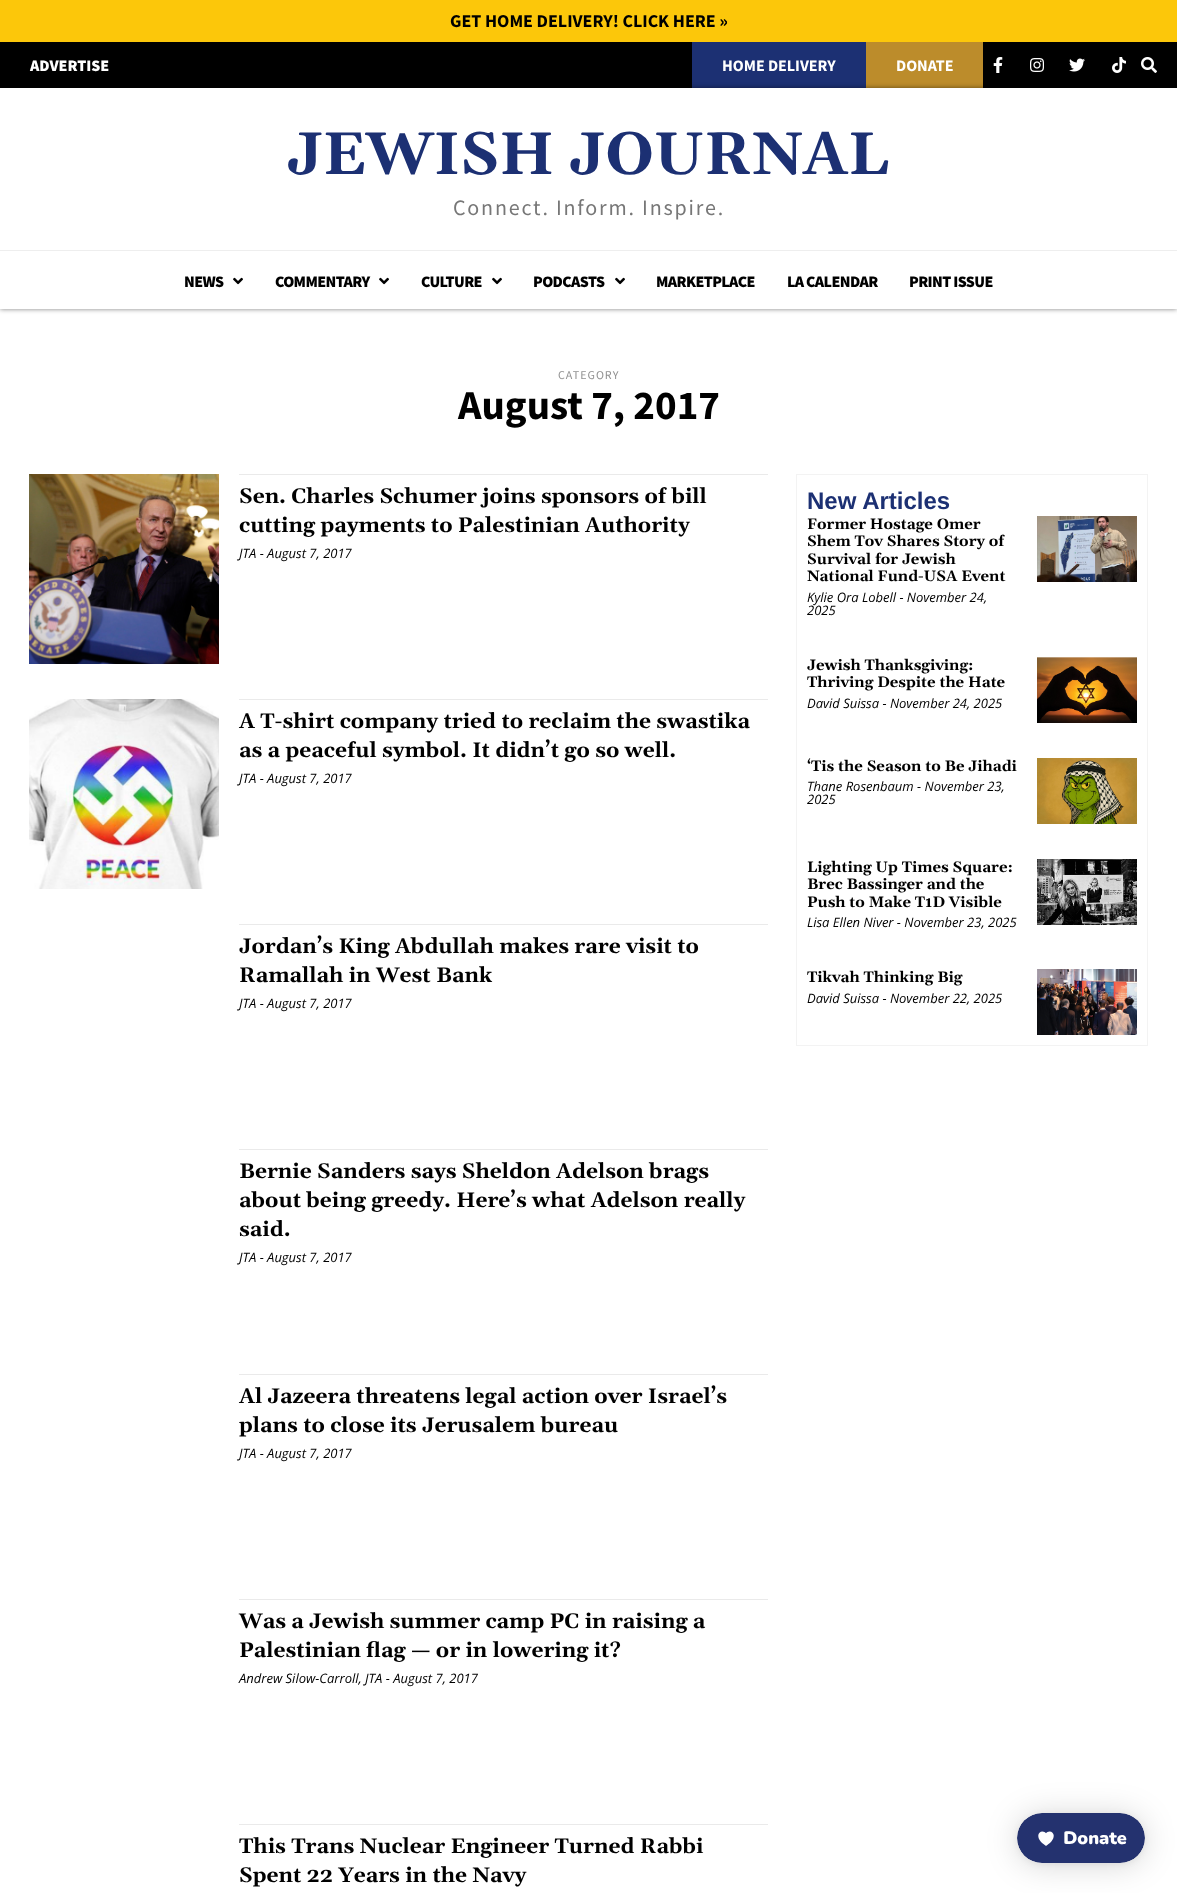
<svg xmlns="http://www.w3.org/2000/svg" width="1177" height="1893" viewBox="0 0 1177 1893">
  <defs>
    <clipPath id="clip1"><path d="M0 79H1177V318H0ZM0 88H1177V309H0Z" clip-rule="evenodd"/></clipPath>
    <clipPath id="clip2"><rect x="807" y="657" width="330" height="66"/></clipPath>
    <clipPath id="clip3"><rect x="807" y="969" width="330" height="66"/></clipPath>
  </defs>
  <rect width="100%" height="100%" fill="rgb(255,255,255)"/>
  <rect x="0" y="0" width="1177" height="42" fill="rgb(252,199,10)"/>
  <text x="450" y="27" font-family="Source Sans Pro" font-size="18" font-weight="bold" fill="rgb(0,0,0)">GET HOME DELIVERY! CLICK HERE »</text>
  <rect x="0" y="42" width="1177" height="46" fill="rgb(0,0,0)"/>
  <text x="30" y="71" font-family="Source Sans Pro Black" font-size="16" font-weight="900" fill="rgb(255,255,255)">ADVERTISE</text>
  <rect x="692" y="42" width="174" height="46" fill="rgb(28,48,115)"/>
  <text x="722" y="71" font-family="Source Sans Pro" font-size="16" font-weight="bold" fill="rgb(255,255,255)">HOME DELIVERY</text>
  <rect x="866" y="42" width="117" height="46" fill="rgb(188,140,43)"/>
  <text x="896" y="71" font-family="Source Sans Pro" font-size="16" font-weight="bold" fill="rgb(255,255,255)">DONATE</text>
  <image x="993" y="57" width="10" height="16" href="pic1.png"/>
  <image x="1030" y="58" width="14" height="14" href="pic2.png"/>
  <image x="1069" y="58" width="16" height="14" href="pic3.png"/>
  <image x="1112" y="57" width="14" height="16" href="pic4.png"/>
  <image x="1141" y="57" width="16" height="16" href="pic5.png"/>
  <g clip-path="url(#clip1)">
    <rect x="0" y="88" width="1177" height="221" fill="rgba(0,0,0,0.5)" filter="blur(2.5px)"/>
  </g>
  <text x="287" y="174" font-family="Gelasio" font-size="60" font-weight="bold" fill="rgb(28,48,115)">JEWISH JOURNAL</text>
  <text x="453" y="215" font-family="Source Sans Pro" font-size="22" letter-spacing="1.8" fill="rgb(119,119,119)">Connect. Inform. Inspire.</text>
  <rect x="0" y="250" width="1177" height="1" fill="rgb(238,238,238)"/>
  <text x="184" y="287" font-family="Source Sans Pro Black" font-size="16" font-weight="900" letter-spacing="-0.6" fill="rgb(0,0,0)">NEWS</text>
  <image x="233" y="277" width="10" height="8" href="pic6.png"/>
  <text x="275" y="287" font-family="Source Sans Pro Black" font-size="16" font-weight="900" letter-spacing="-0.6" fill="rgb(0,0,0)">COMMENTARY</text>
  <image x="379" y="277" width="10" height="8" href="pic6.png"/>
  <text x="421" y="287" font-family="Source Sans Pro Black" font-size="16" font-weight="900" letter-spacing="-0.6" fill="rgb(0,0,0)">CULTURE</text>
  <image x="492" y="277" width="10" height="8" href="pic6.png"/>
  <text x="533" y="287" font-family="Source Sans Pro Black" font-size="16" font-weight="900" letter-spacing="-0.6" fill="rgb(0,0,0)">PODCASTS</text>
  <image x="615" y="277" width="10" height="8" href="pic6.png"/>
  <g font-family="Source Sans Pro Black" font-size="16" font-weight="900" letter-spacing="-0.6" fill="rgb(0,0,0)">
    <text x="656" y="287">MARKETPLACE</text>
    <text x="787" y="287">LA CALENDAR</text>
    <text x="909" y="287">PRINT ISSUE</text>
  </g>
  <text x="558" y="379" font-family="Source Sans Pro" font-size="12" letter-spacing="1" fill="rgb(145,145,145)">CATEGORY</text>
  <text x="458" y="419" font-family="Source Sans Pro" font-size="41" font-weight="bold" fill="rgb(0,0,0)">August 7, 2017</text>
  <image x="29" y="474" width="190" height="190" href="pic7.png"/>
  <rect x="239" y="474" width="529" height="1" fill="rgb(234,234,234)"/>
  <g font-family="Gelasio" font-size="21" font-weight="bold" fill="rgb(0,0,0)">
    <text>
      <tspan x="239" y="503">Sen. Charles Schumer joins sponsors of bill</tspan>
      <tspan x="239" y="532">cutting payments to Palestinian Authority</tspan>
    </text>
  </g>
  <text x="239" y="558" font-family="Open Sans" font-size="13" font-style="italic" fill="rgb(0,0,0)">JTA - August 7, 2017</text>
  <image x="29" y="699" width="190" height="190" href="pic8.png"/>
  <rect x="239" y="699" width="529" height="1" fill="rgb(234,234,234)"/>
  <g font-family="Gelasio" font-size="21" font-weight="bold" fill="rgb(0,0,0)">
    <text>
      <tspan x="239" y="728">A T-shirt company tried to reclaim the swastika</tspan>
      <tspan x="239" y="757">as a peaceful symbol. It didn’t go so well.</tspan>
    </text>
  </g>
  <text x="239" y="783" font-family="Open Sans" font-size="13" font-style="italic" fill="rgb(0,0,0)">JTA - August 7, 2017</text>
  <rect x="239" y="924" width="529" height="1" fill="rgb(234,234,234)"/>
  <g font-family="Gelasio" font-size="21" font-weight="bold" fill="rgb(0,0,0)">
    <text>
      <tspan x="239" y="953">Jordan’s King Abdullah makes rare visit to</tspan>
      <tspan x="239" y="982">Ramallah in West Bank</tspan>
    </text>
  </g>
  <text x="239" y="1008" font-family="Open Sans" font-size="13" font-style="italic" fill="rgb(0,0,0)">JTA - August 7, 2017</text>
  <rect x="239" y="1149" width="529" height="1" fill="rgb(234,234,234)"/>
  <g font-family="Gelasio" font-size="21" font-weight="bold" fill="rgb(0,0,0)">
    <text>
      <tspan x="239" y="1178">Bernie Sanders says Sheldon Adelson brags</tspan>
      <tspan x="239" y="1207">about being greedy. Here’s what Adelson really</tspan>
      <tspan x="239" y="1236">said.</tspan>
    </text>
  </g>
  <text x="239" y="1262" font-family="Open Sans" font-size="13" font-style="italic" fill="rgb(0,0,0)">JTA - August 7, 2017</text>
  <rect x="239" y="1374" width="529" height="1" fill="rgb(234,234,234)"/>
  <g font-family="Gelasio" font-size="21" font-weight="bold" fill="rgb(0,0,0)">
    <text>
      <tspan x="239" y="1403">Al Jazeera threatens legal action over Israel’s</tspan>
      <tspan x="239" y="1432">plans to close its Jerusalem bureau</tspan>
    </text>
  </g>
  <text x="239" y="1458" font-family="Open Sans" font-size="13" font-style="italic" fill="rgb(0,0,0)">JTA - August 7, 2017</text>
  <rect x="239" y="1599" width="529" height="1" fill="rgb(234,234,234)"/>
  <g font-family="Gelasio" font-size="21" font-weight="bold" fill="rgb(0,0,0)">
    <text>
      <tspan x="239" y="1628">Was a Jewish summer camp PC in raising a</tspan>
      <tspan x="239" y="1657">Palestinian flag — or in lowering it?</tspan>
    </text>
  </g>
  <text x="239" y="1683" font-family="Open Sans" font-size="13" font-style="italic" fill="rgb(0,0,0)">Andrew Silow-Carroll, JTA - August 7, 2017</text>
  <rect x="239" y="1824" width="529" height="1" fill="rgb(234,234,234)"/>
  <g font-family="Gelasio" font-size="21" font-weight="bold" fill="rgb(0,0,0)">
    <text>
      <tspan x="239" y="1853">This Trans Nuclear Engineer Turned Rabbi</tspan>
      <tspan x="239" y="1882">Spent 22 Years in the Navy</tspan>
    </text>
  </g>
  <rect x="796.5" y="474.5" width="351" height="571" fill="none" stroke="rgb(243,243,243)"/>
  <text x="807" y="509" font-family="Liberation Sans" font-size="24" font-weight="bold" fill="rgb(28,48,115)">New Articles</text>
  <g font-family="Gelasio" font-size="15" font-weight="bold" fill="rgb(0,0,0)">
    <text>
      <tspan x="807" y="529">Former Hostage Omer</tspan>
      <tspan x="807" y="546">Shem Tov Shares Story of</tspan>
      <tspan x="807" y="564">Survival for Jewish</tspan>
      <tspan x="807" y="581">National Fund-USA Event</tspan>
    </text>
  </g>
  <g font-family="Open Sans" font-size="13" font-style="italic" fill="rgb(0,0,0)">
    <text>
      <tspan x="807" y="602">Kylie Ora Lobell - November 24,</tspan>
      <tspan x="807" y="615">2025</tspan>
    </text>
  </g>
  <image x="1037" y="516" width="100" height="66" href="pic9.png"/>
  <text x="807" y="670" font-family="Gelasio" font-size="15" font-weight="bold" fill="rgb(0,0,0)">Jewish Thanksgiving:</text>
  <g clip-path="url(#clip2)">
    <text x="807" y="687" font-family="Gelasio" font-size="15" font-weight="bold" fill="rgb(0,0,0)">Thriving Despite the Hate</text>
  </g>
  <text x="807" y="708" font-family="Open Sans" font-size="13" font-style="italic" fill="rgb(0,0,0)">David Suissa - November 24, 2025</text>
  <image x="1037" y="657" width="100" height="66" href="pic10.png"/>
  <text x="807" y="771" font-family="Gelasio" font-size="15" font-weight="bold" fill="rgb(0,0,0)">‘Tis the Season to Be Jihadi</text>
  <g font-family="Open Sans" font-size="13" font-style="italic" fill="rgb(0,0,0)">
    <text>
      <tspan x="807" y="791">Thane Rosenbaum - November 23,</tspan>
      <tspan x="807" y="804">2025</tspan>
    </text>
  </g>
  <image x="1037" y="758" width="100" height="66" href="pic11.png"/>
  <g font-family="Gelasio" font-size="15" font-weight="bold" fill="rgb(0,0,0)">
    <text>
      <tspan x="807" y="872">Lighting Up Times Square:</tspan>
      <tspan x="807" y="889">Brec Bassinger and the</tspan>
      <tspan x="807" y="907">Push to Make T1D Visible</tspan>
    </text>
  </g>
  <text x="807" y="927" font-family="Open Sans" font-size="13" font-style="italic" fill="rgb(0,0,0)">Lisa Ellen Niver - November 23, 2025</text>
  <image x="1037" y="859" width="100" height="66" href="pic12.png"/>
  <g clip-path="url(#clip3)">
    <text x="807" y="982" font-family="Gelasio" font-size="15" font-weight="bold" fill="rgb(0,0,0)">Tikvah Thinking Big</text>
  </g>
  <text x="807" y="1003" font-family="Open Sans" font-size="13" font-style="italic" fill="rgb(0,0,0)">David Suissa - November 22, 2025</text>
  <image x="1037" y="969" width="100" height="66" href="pic13.png"/>
  <rect x="1017" y="1815" width="128" height="50" rx="25" fill="rgba(0,0,0,0.16)" filter="blur(16px)"/>
  <rect x="1017" y="1814" width="128" height="50" rx="25" fill="rgba(0,0,0,0.06)" filter="blur(3px)"/>
  <image x="1017" y="1813" width="128" height="50" href="pic14.png"/>
</svg>
